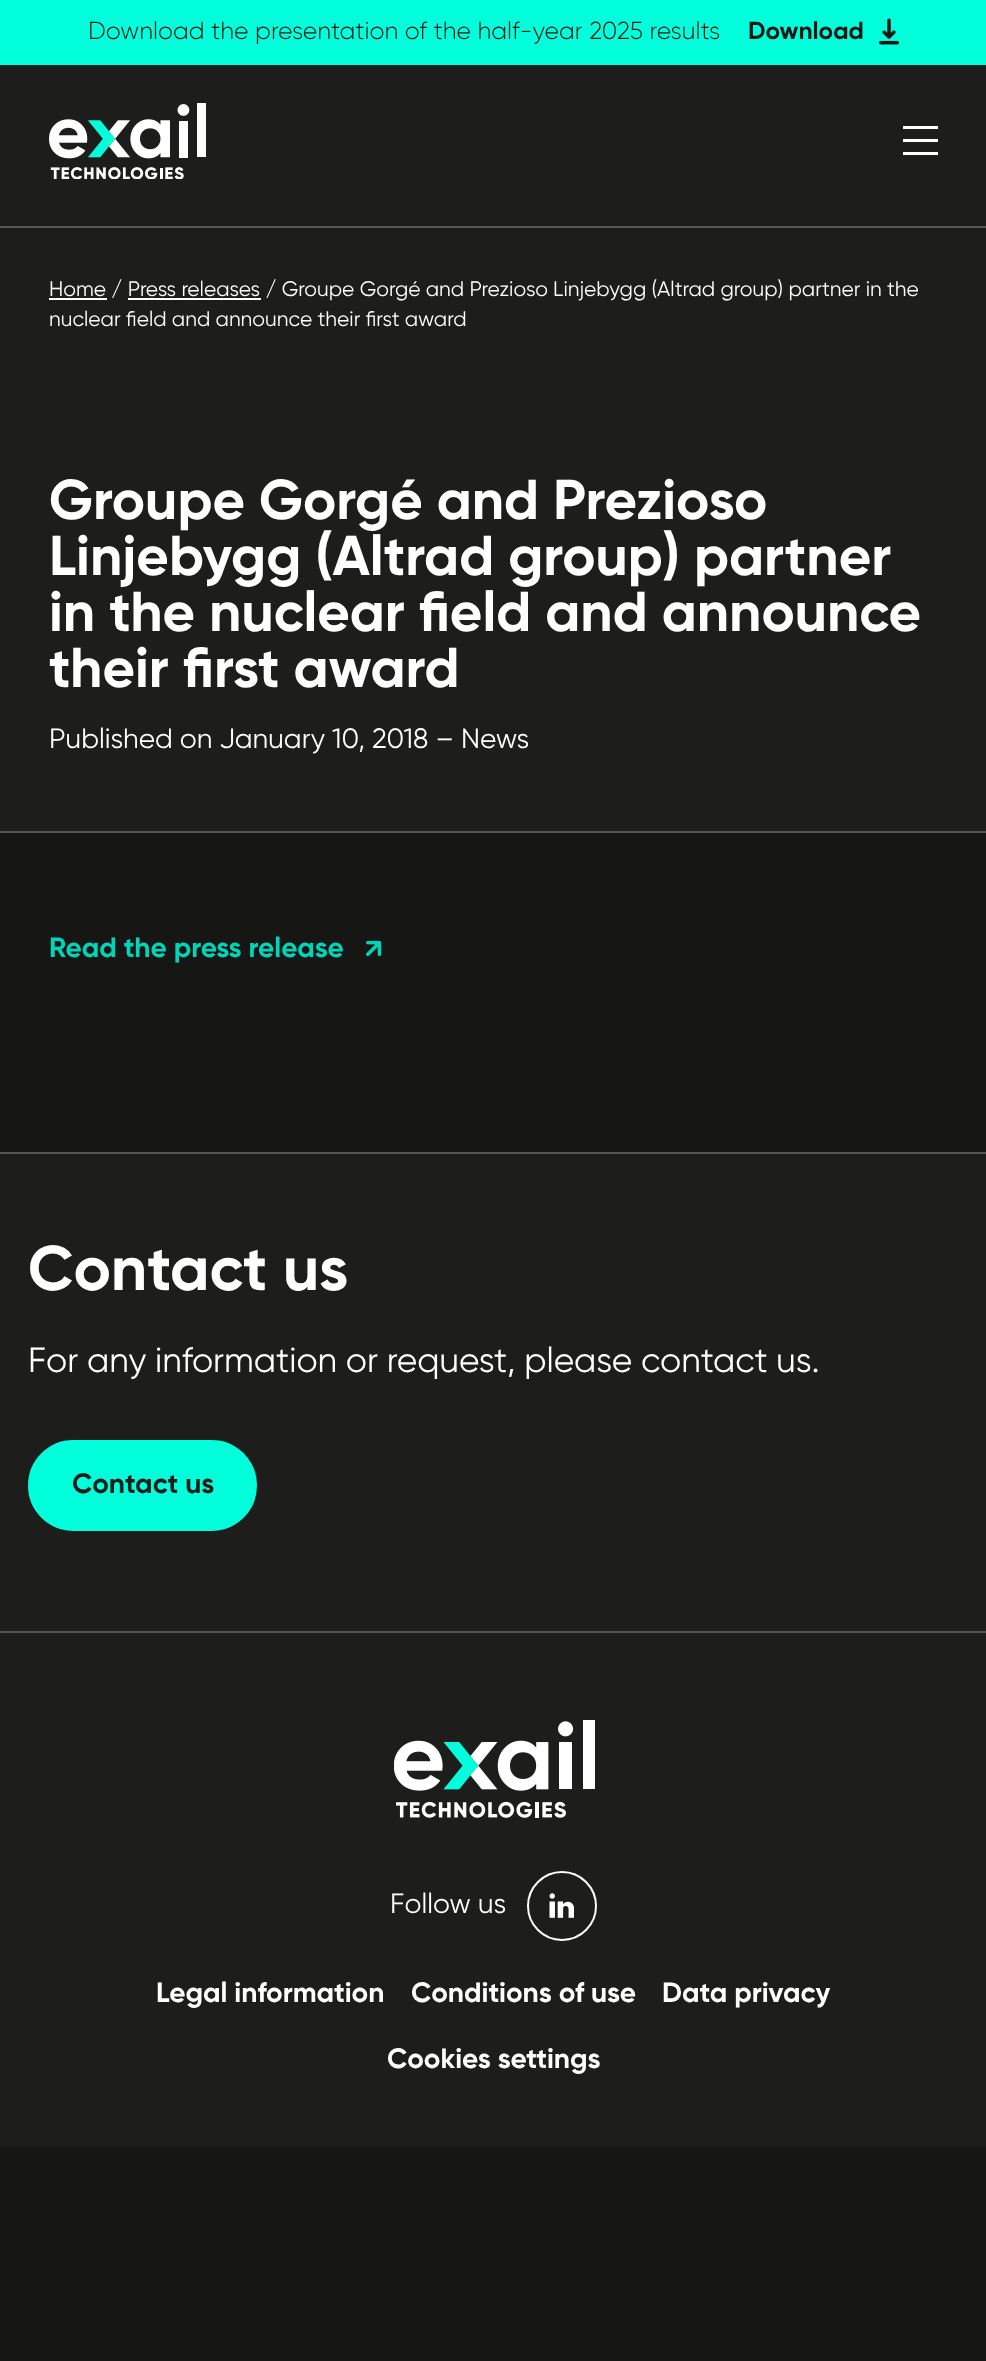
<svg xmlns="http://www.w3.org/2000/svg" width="986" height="2361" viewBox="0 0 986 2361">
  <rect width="100%" height="100%" fill="rgb(22,22,21)"/>
  <rect x="0" y="0" width="986" height="65" fill="rgb(0,255,218)"/>
  <text x="88" y="39" font-family="Gilroy" font-size="24.5" font-weight="300" fill="rgb(22,22,21)">Download the presentation of the half-year 2025 results</text>
  <text x="748" y="39" font-family="Gilroy" font-size="24.5" font-weight="bold" fill="rgb(22,22,21)">Download</text>
  <image x="878" y="18" width="22" height="27" href="pic1.png"/>
  <rect x="0" y="65" width="986" height="161" fill="rgb(29,29,27)"/>
  <rect x="0" y="226" width="986" height="2" fill="rgb(86,86,85)"/>
  <image x="49" y="103" width="157" height="76" href="pic2.png"/>
  <path d="M938 129H903V126H938ZM938 155H903V152H938ZM938 142H903V139H938Z" fill="rgb(255,255,255)"/>
  <rect x="0" y="228" width="986" height="603" fill="rgb(29,29,27)"/>
  <rect x="0" y="831" width="986" height="2" fill="rgb(86,86,85)"/>
  <rect x="49" y="298" width="58" height="2" fill="rgb(255,255,255)"/>
  <text x="49" y="296" font-family="Gilroy" font-size="21" fill="rgb(255,255,255)">Home / Press releases / Groupe Gorgé and Prezioso Linjebygg (Altrad group) partner in the</text>
  <rect x="128" y="298" width="133" height="2" fill="rgb(255,255,255)"/>
  <text x="49" y="326" font-family="Gilroy" font-size="21" fill="rgb(255,255,255)">nuclear field and announce their first award</text>
  <g font-family="Gilroy" font-size="56" font-weight="bold" fill="rgb(255,255,255)">
    <text>
      <tspan x="49" y="519">Groupe Gorgé and Prezioso</tspan>
      <tspan x="49" y="575">Linjebygg (Altrad group) partner</tspan>
      <tspan x="49" y="631">in the nuclear field and announce</tspan>
      <tspan x="49" y="687">their first award</tspan>
    </text>
  </g>
  <text x="49" y="748" font-family="Gilroy" font-size="28" fill="rgb(255,255,255)">Published on January 10, 2018 – News</text>
  <text x="49" y="957" font-family="Gilroy" font-size="28" font-weight="bold" fill="rgb(0,214,183)">Read the press release</text>
  <image x="366" y="940" width="16" height="17" href="pic3.png"/>
  <rect x="0" y="1154" width="986" height="477" fill="rgb(29,29,27)"/>
  <rect x="0" y="1152" width="986" height="2" fill="rgb(86,86,85)"/>
  <text x="28" y="1290" font-family="Gilroy" font-size="63" font-weight="bold" fill="rgb(255,255,255)">Contact us</text>
  <text x="28" y="1372" font-family="Gilroy" font-size="35" fill="rgb(255,255,255)">For any information or request, please contact us.</text>
  <rect x="29" y="1441" width="227" height="89" rx="44.5" fill="rgb(0,255,218)" stroke="rgb(0,255,218)" stroke-width="2"/>
  <text x="72" y="1493" font-family="Gilroy" font-size="28" font-weight="bold" fill="rgb(29,29,27)">Contact us</text>
  <rect x="0" y="1633" width="986" height="513" fill="rgb(29,29,27)"/>
  <rect x="0" y="1631" width="986" height="2" fill="rgb(86,86,85)"/>
  <image x="394" y="1720" width="201" height="98" href="pic4.png"/>
  <text x="390" y="1913" font-family="Gilroy" font-size="28" fill="rgb(255,255,255)">Follow us</text>
  <circle cx="562" cy="1906" r="34" fill="none" stroke="rgb(255,255,255)" stroke-width="2"/>
  <image x="549" y="1893" width="25" height="25" href="pic5.png"/>
  <g font-family="Gilroy" font-size="28" font-weight="bold" fill="rgb(255,255,255)">
    <text x="156" y="2002">Legal information</text>
    <text x="411" y="2002">Conditions of use</text>
    <text x="662" y="2002">Data privacy</text>
    <text x="387" y="2068">Cookies settings</text>
  </g>
</svg>
